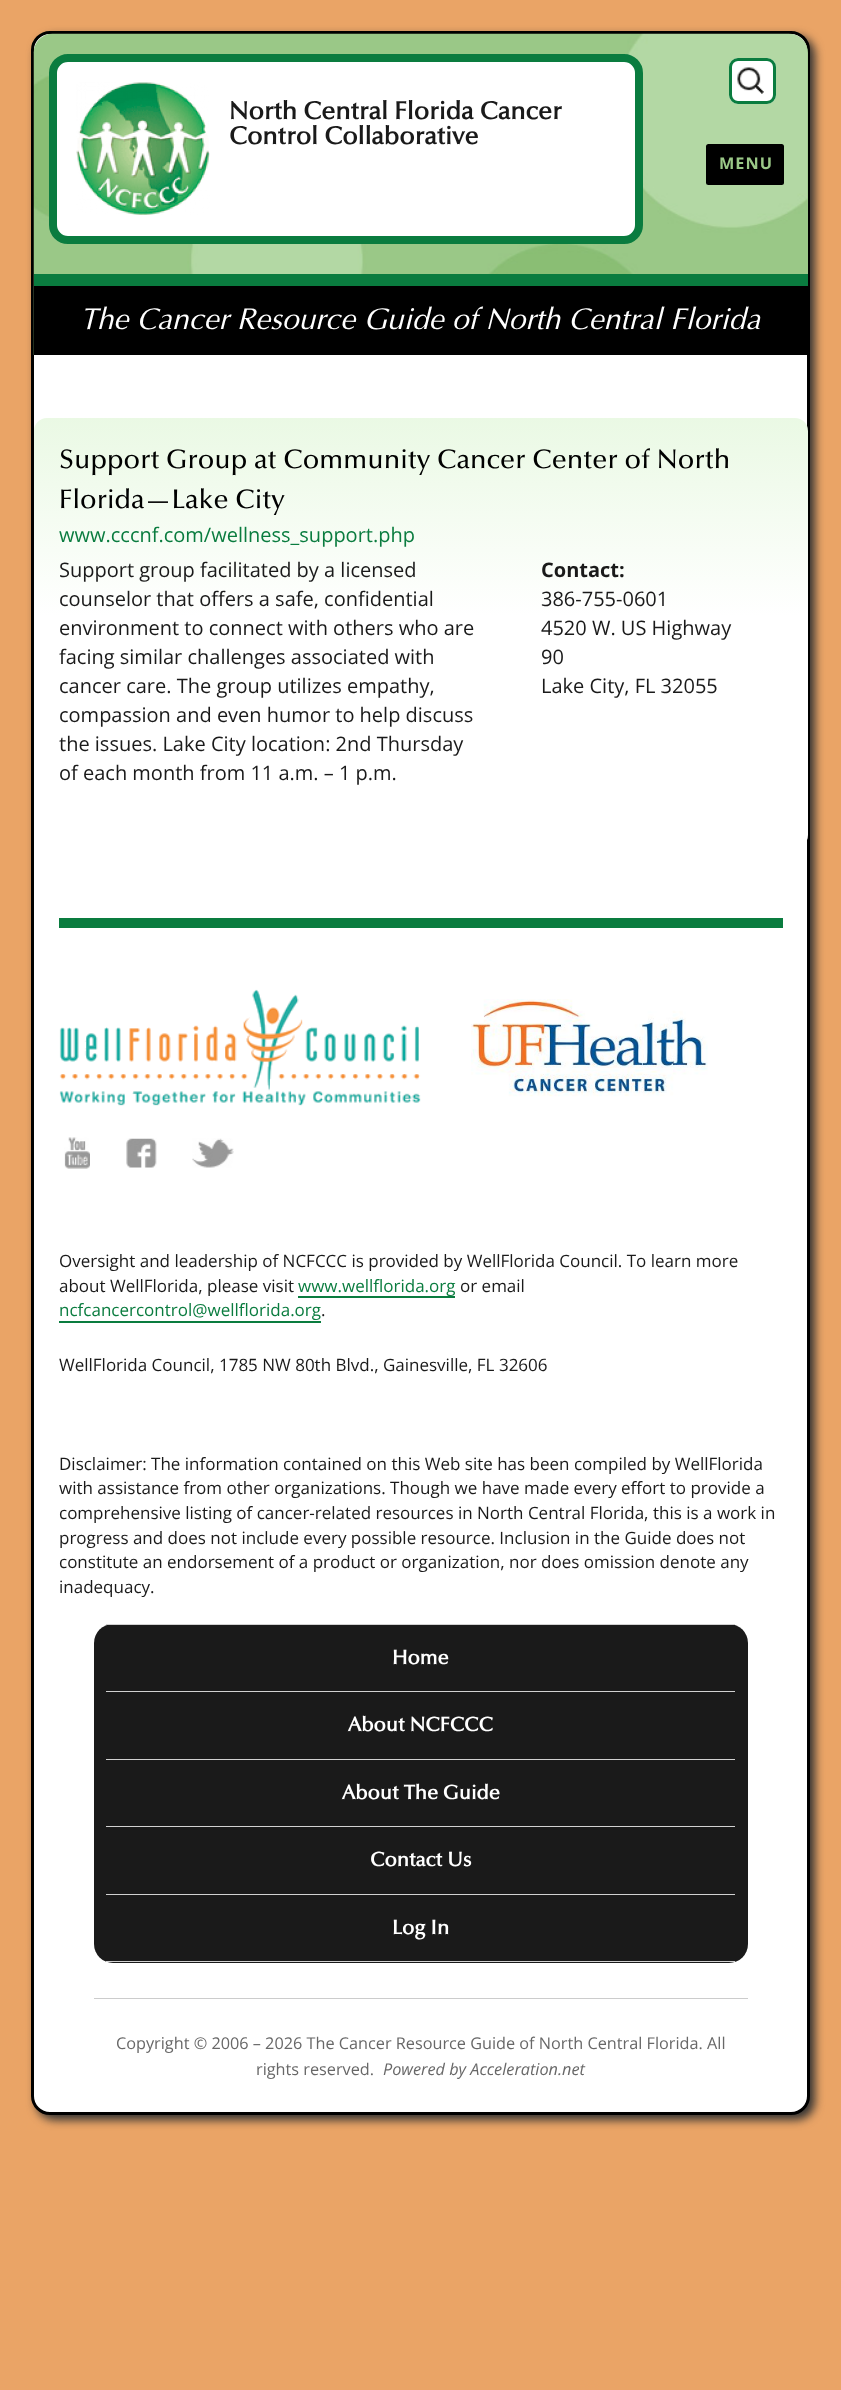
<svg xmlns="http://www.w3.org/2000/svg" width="841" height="2390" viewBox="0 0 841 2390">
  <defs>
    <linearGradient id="g1" gradientUnits="userSpaceOnUse" x1="421" y1="418" x2="421" y2="848"><stop offset="0" stop-color="rgb(234,249,228)"/><stop offset="0.46" stop-color="rgb(255,255,255)"/><stop offset="1" stop-color="rgb(255,255,255)"/></linearGradient>
  </defs>
  <rect width="100%" height="100%" fill="rgb(234,164,102)"/>
  <rect x="36" y="36" width="779" height="2084" rx="19" fill="rgb(51,51,51)" filter="blur(5px)"/>
  <rect x="32.5" y="32.5" width="776" height="2081" rx="17.5" fill="rgb(255,255,255)" stroke="rgb(0,0,0)" stroke-width="3"/>
  <path d="M53 34H789C799.5 34 808 42.5 808 53V355H34V53C34 42.5 42.5 34 53 34Z" fill="rgb(154,200,135)"/>
  <image x="33" y="33" width="775" height="322" href="pic1.png"/>
  <rect x="729" y="58" width="47" height="46" rx="9" fill="rgb(255,255,255)"/>
  <image x="737" y="67" width="27" height="27" href="pic2.png"/>
  <rect x="730.5" y="59.5" width="44" height="43" rx="7.5" fill="none" stroke="rgb(10,124,63)" stroke-width="3"/>
  <rect x="53" y="58" width="586" height="182" rx="15" fill="rgb(255,255,255)" stroke="rgb(10,124,63)" stroke-width="8"/>
  <image x="76" y="82" width="134" height="133" href="pic3.png"/>
  <g font-family="Optima" font-size="25" font-weight="bold" fill="rgb(26,26,26)">
    <text>
      <tspan x="229" y="119">North Central Florida Cancer</tspan>
      <tspan x="229" y="144">Control Collaborative</tspan>
    </text>
  </g>
  <rect x="706" y="144" width="78" height="41" rx="2.5" fill="rgb(0,0,0)"/>
  <text x="719" y="169" font-family="Open Sans" font-size="16.25" font-weight="bold" letter-spacing="1" fill="rgb(154,200,135)">MENU</text>
  <rect x="34" y="286" width="774" height="69" fill="rgb(0,0,0)"/>
  <rect x="34" y="274" width="774" height="12" fill="rgb(10,124,63)"/>
  <text x="80" y="329" font-family="Optima" font-size="30" font-style="italic" fill="rgb(255,255,255)">The Cancer Resource Guide of North Central Florida</text>
  <rect x="34" y="418" width="774" height="430" rx="13" fill="url(#g1)"/>
  <g font-family="Optima" font-size="27" font-weight="500" fill="rgb(0,0,0)">
    <text>
      <tspan x="59" y="468">Support Group at Community Cancer Center of North</tspan>
      <tspan x="59" y="508">Florida—Lake City</tspan>
    </text>
  </g>
  <text x="59" y="542" font-family="Open Sans" font-size="20" fill="rgb(10,124,63)">www.cccnf.com/wellness_support.php</text>
  <g font-family="Open Sans" font-size="20" fill="rgb(26,26,26)">
    <text>
      <tspan x="59" y="577">Support group facilitated by a licensed</tspan>
      <tspan x="59" y="606">counselor that offers a safe, confidential</tspan>
      <tspan x="59" y="635">environment to connect with others who are</tspan>
      <tspan x="59" y="664">facing similar challenges associated with</tspan>
      <tspan x="59" y="693">cancer care. The group utilizes empathy,</tspan>
      <tspan x="59" y="722">compassion and even humor to help discuss</tspan>
      <tspan x="59" y="751">the issues. Lake City location: 2nd Thursday</tspan>
      <tspan x="59" y="780">of each month from 11 a.m. – 1 p.m.</tspan>
    </text>
  </g>
  <text x="541" y="577" font-family="Open Sans" font-size="20" font-weight="bold" fill="rgb(26,26,26)">Contact:</text>
  <g font-family="Open Sans" font-size="20" fill="rgb(26,26,26)">
    <text>
      <tspan x="541" y="606">386-755-0601</tspan>
      <tspan x="541" y="635">4520 W. US Highway</tspan>
      <tspan x="541" y="664">90</tspan>
      <tspan x="541" y="693">Lake City, FL 32055</tspan>
    </text>
  </g>
  <rect x="59" y="918" width="724" height="10" fill="rgb(10,124,63)"/>
  <image x="59" y="989" width="362" height="117" href="pic4.png"/>
  <image x="64" y="1137" width="26" height="32" href="pic5.png"/>
  <image x="126" y="1138" width="31" height="30" href="pic6.png"/>
  <image x="192" y="1138" width="42" height="30" href="pic7.png"/>
  <image x="471" y="999" width="237" height="98" href="pic8.png"/>
  <g font-family="Open Sans" font-size="17" fill="rgb(26,26,26)">
    <text>
      <tspan x="59" y="1267">Oversight and leadership of NCFCCC is provided by WellFlorida Council. To learn more</tspan>
      <tspan x="59" y="1292">about WellFlorida, please visit</tspan>
    </text>
  </g>
  <rect x="298" y="1296" width="157" height="2" fill="rgb(10,124,63)"/>
  <text x="298" y="1292" font-family="Open Sans" font-size="17" fill="rgb(10,124,63)">www.wellflorida.org</text>
  <text x="460" y="1292" font-family="Open Sans" font-size="17" fill="rgb(26,26,26)">or email</text>
  <text x="59" y="1316" font-family="Open Sans" font-size="17" fill="rgb(10,124,63)">ncfcancercontrol@wellflorida.org</text>
  <rect x="59" y="1321" width="262" height="2" fill="rgb(10,124,63)"/>
  <g font-family="Open Sans" font-size="17" fill="rgb(26,26,26)">
    <text x="321" y="1316">.</text>
    <text x="59" y="1371">WellFlorida Council, 1785 NW 80th Blvd., Gainesville, FL 32606</text>
    <text>
      <tspan x="59" y="1470">Disclaimer: The information contained on this Web site has been compiled by WellFlorida</tspan>
      <tspan x="59" y="1494">with assistance from other organizations. Though we have made every effort to provide a</tspan>
      <tspan x="59" y="1519">comprehensive listing of cancer-related resources in North Central Florida, this is a work in</tspan>
      <tspan x="59" y="1544">progress and does not include every possible resource. Inclusion in the Guide does not</tspan>
      <tspan x="59" y="1568">constitute an endorsement of a product or organization, nor does omission denote any</tspan>
      <tspan x="59" y="1593">inadequacy.</tspan>
    </text>
  </g>
  <rect x="94" y="1624" width="654" height="339" rx="19" fill="rgb(26,26,26)"/>
  <rect x="106" y="1961" width="629" height="1" fill="rgb(209,209,209)"/>
  <rect x="106" y="1624" width="629" height="1" fill="rgb(209,209,209)"/>
  <text x="392" y="1664" font-family="Optima" font-size="20" font-weight="bold" fill="rgb(255,255,255)">Home</text>
  <rect x="106" y="1691" width="629" height="1" fill="rgb(209,209,209)"/>
  <text x="348" y="1731" font-family="Optima" font-size="20" font-weight="bold" fill="rgb(255,255,255)">About NCFCCC</text>
  <rect x="106" y="1759" width="629" height="1" fill="rgb(209,209,209)"/>
  <text x="342" y="1799" font-family="Optima" font-size="20" font-weight="bold" fill="rgb(255,255,255)">About The Guide</text>
  <rect x="106" y="1826" width="629" height="1" fill="rgb(209,209,209)"/>
  <text x="370" y="1866" font-family="Optima" font-size="20" font-weight="bold" fill="rgb(255,255,255)">Contact Us</text>
  <rect x="106" y="1894" width="629" height="1" fill="rgb(209,209,209)"/>
  <text x="392" y="1934" font-family="Optima" font-size="20" font-weight="bold" fill="rgb(255,255,255)">Log In</text>
  <rect x="94" y="1998" width="654" height="1" fill="rgb(204,204,204)"/>
  <g font-family="Open Sans" font-size="16.25" fill="rgb(104,104,104)">
    <text x="116" y="2049">Copyright © 2006 – 2026 The Cancer Resource Guide of North Central Florida. All</text>
    <text x="256" y="2075">rights reserved.</text>
  </g>
  <text x="383" y="2075" font-family="Open Sans" font-size="16.25" font-style="italic" fill="rgb(104,104,104)">Powered by Acceleration.net</text>
</svg>
